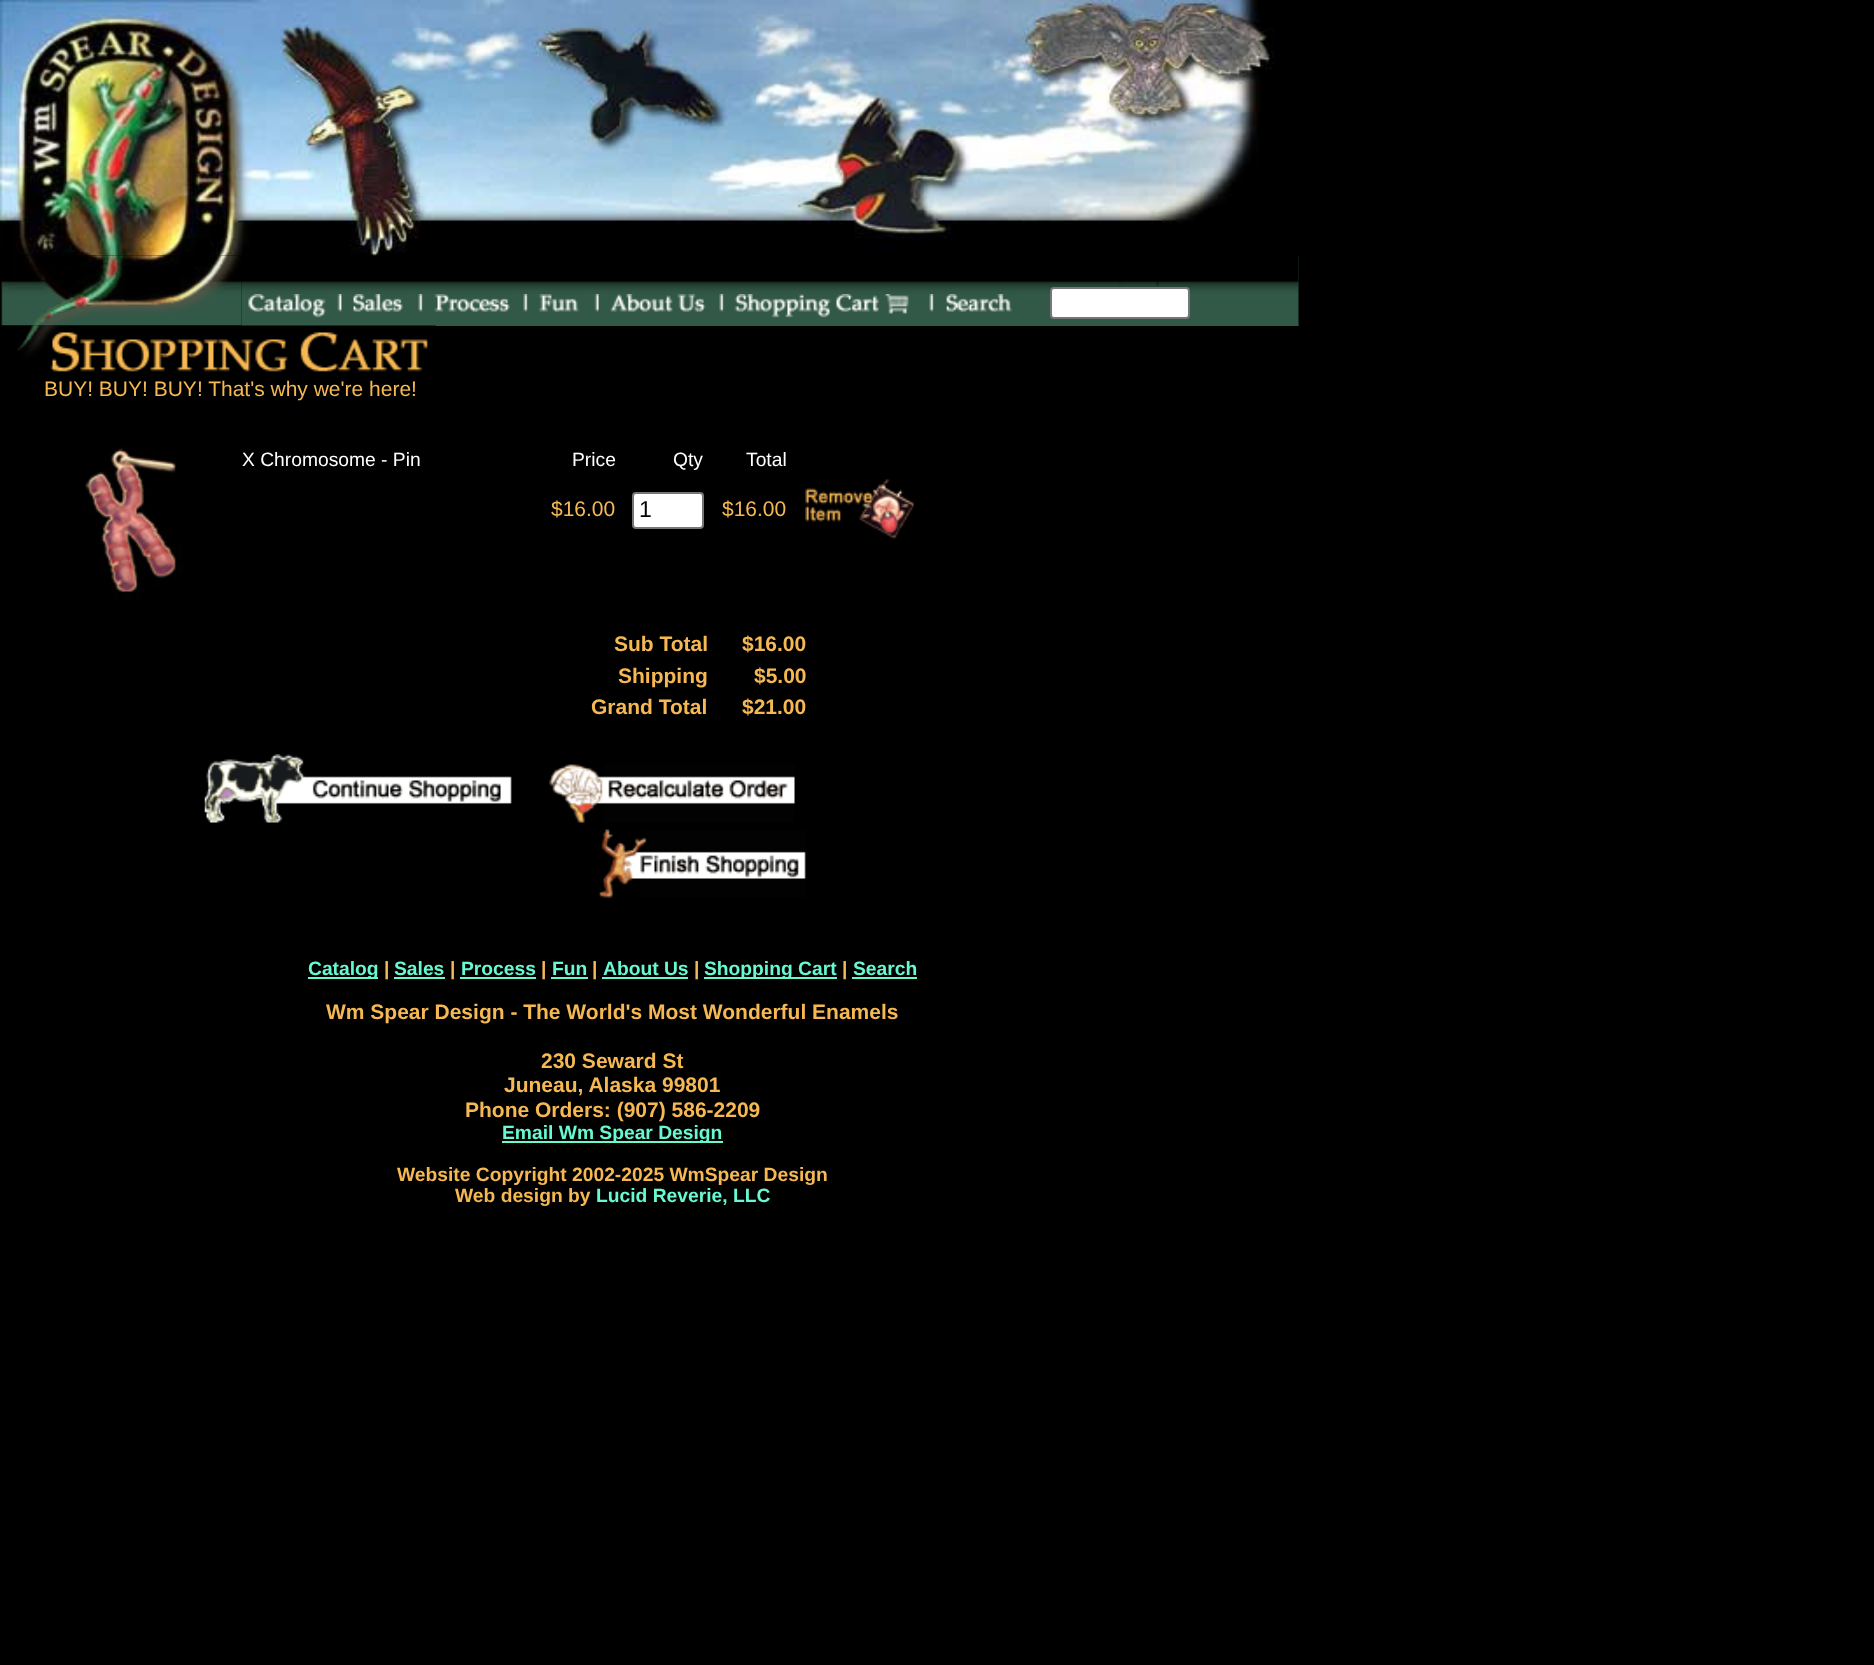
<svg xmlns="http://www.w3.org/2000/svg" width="1874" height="1665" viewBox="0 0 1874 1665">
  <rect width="100%" height="100%" fill="rgb(0,0,0)"/>
  <image x="0" y="0" width="1274" height="256" href="pic1.png"/>
  <image x="1" y="255" width="241" height="71" href="pic2.png"/>
  <rect x="242" y="256" width="1057" height="70" fill="rgb(50,88,71)"/>
  <image x="241" y="255" width="1058" height="39" href="pic3.png"/>
  <image x="241" y="294" width="85" height="32" href="pic4.png"/>
  <image x="337" y="294" width="5" height="18" href="pic5.png"/>
  <image x="353" y="294" width="50" height="18" href="pic6.png"/>
  <image x="418" y="294" width="5" height="18" href="pic7.png"/>
  <image x="434" y="294" width="76" height="18" href="pic8.png"/>
  <image x="523" y="294" width="5" height="18" href="pic7.png"/>
  <image x="538" y="294" width="42" height="18" href="pic9.png"/>
  <image x="594" y="294" width="5" height="18" href="pic10.png"/>
  <image x="610" y="294" width="96" height="18" href="pic11.png"/>
  <image x="719" y="294" width="5" height="18" href="pic7.png"/>
  <image x="734" y="294" width="175" height="24" href="pic12.png"/>
  <image x="929" y="294" width="5" height="18" href="pic7.png"/>
  <image x="946" y="294" width="66" height="18" href="pic13.png"/>
  <image x="1298" y="256" width="1" height="70" href="pic14.png"/>
  <image x="1" y="325" width="435" height="47" href="pic15.png"/>
  <rect x="1051" y="288" width="138" height="30" rx="3" fill="rgb(255,255,255)" stroke="rgb(118,118,118)" stroke-width="2"/>
  <text x="44" y="396" font-family="Liberation Sans" font-size="21" fill="rgb(246,184,83)">BUY! BUY! BUY! That's why we're here!</text>
  <image x="85" y="447" width="99" height="153" href="pic16.png"/>
  <g font-family="Liberation Sans" font-size="19.25" fill="rgb(255,255,255)">
    <text x="242" y="466">X Chromosome - Pin</text>
    <text x="572" y="466">Price</text>
    <text x="673" y="466">Qty</text>
    <text x="746" y="466">Total</text>
  </g>
  <text x="551" y="516" font-family="Liberation Sans" font-size="21" fill="rgb(246,184,83)">$16.00</text>
  <rect x="633" y="493" width="70" height="35" rx="3" fill="rgb(255,255,255)" stroke="rgb(118,118,118)" stroke-width="2"/>
  <text x="639" y="517" font-family="Liberation Sans" font-size="23" fill="rgb(0,0,0)">1</text>
  <text x="722" y="516" font-family="Liberation Sans" font-size="21" fill="rgb(246,184,83)">$16.00</text>
  <image x="805" y="479" width="109" height="60" href="pic17.png"/>
  <g font-family="Liberation Sans" font-size="21" font-weight="bold" fill="rgb(246,184,83)">
    <text x="614" y="651">Sub Total</text>
    <text x="742" y="651">$16.00</text>
    <text x="618" y="683">Shipping</text>
    <text x="754" y="683">$5.00</text>
    <text x="591" y="714">Grand Total</text>
    <text x="742" y="714">$21.00</text>
  </g>
  <image x="204" y="754" width="308" height="69" href="pic18.png"/>
  <image x="549" y="764" width="246" height="59" href="pic19.png"/>
  <image x="598" y="829" width="208" height="69" href="pic20.png"/>
  <rect x="308" y="977" width="70" height="2" fill="rgb(104,249,210)"/>
  <text x="308" y="975" font-family="Liberation Sans" font-size="19.25" font-weight="bold" fill="rgb(104,249,210)">Catalog</text>
  <text x="384" y="975" font-family="Liberation Sans" font-size="19.25" font-weight="bold" fill="rgb(246,184,83)">|</text>
  <text x="394" y="975" font-family="Liberation Sans" font-size="19.25" font-weight="bold" fill="rgb(104,249,210)">Sales</text>
  <rect x="394" y="977" width="51" height="2" fill="rgb(104,249,210)"/>
  <text x="450" y="975" font-family="Liberation Sans" font-size="19.25" font-weight="bold" fill="rgb(246,184,83)">|</text>
  <text x="461" y="975" font-family="Liberation Sans" font-size="19.25" font-weight="bold" fill="rgb(104,249,210)">Process</text>
  <rect x="460" y="977" width="76" height="2" fill="rgb(104,249,210)"/>
  <text x="541" y="975" font-family="Liberation Sans" font-size="19.25" font-weight="bold" fill="rgb(246,184,83)">|</text>
  <text x="552" y="975" font-family="Liberation Sans" font-size="19.25" font-weight="bold" fill="rgb(104,249,210)">Fun</text>
  <rect x="551" y="977" width="37" height="2" fill="rgb(104,249,210)"/>
  <text x="592" y="975" font-family="Liberation Sans" font-size="19.25" font-weight="bold" fill="rgb(246,184,83)">|</text>
  <text x="603" y="975" font-family="Liberation Sans" font-size="19.25" font-weight="bold" fill="rgb(104,249,210)">About Us</text>
  <rect x="602" y="977" width="86" height="2" fill="rgb(104,249,210)"/>
  <text x="694" y="975" font-family="Liberation Sans" font-size="19.25" font-weight="bold" fill="rgb(246,184,83)">|</text>
  <rect x="704" y="977" width="133" height="2" fill="rgb(104,249,210)"/>
  <text x="704" y="975" font-family="Liberation Sans" font-size="19.25" font-weight="bold" fill="rgb(104,249,210)">Shopping Cart</text>
  <text x="842" y="975" font-family="Liberation Sans" font-size="19.25" font-weight="bold" fill="rgb(246,184,83)">|</text>
  <text x="853" y="975" font-family="Liberation Sans" font-size="19.25" font-weight="bold" fill="rgb(104,249,210)">Search</text>
  <rect x="852" y="977" width="65" height="2" fill="rgb(104,249,210)"/>
  <g font-family="Liberation Sans" font-size="21" font-weight="bold" fill="rgb(246,184,83)">
    <text x="326" y="1019">Wm Spear Design - The World's Most Wonderful Enamels</text>
    <text x="541" y="1068">230 Seward St</text>
    <text x="504" y="1092">Juneau, Alaska 99801</text>
    <text x="465" y="1117">Phone Orders: (907) 586-2209</text>
  </g>
  <rect x="502" y="1141" width="221" height="2" fill="rgb(104,249,210)"/>
  <text x="502" y="1139" font-family="Liberation Sans" font-size="19.25" font-weight="bold" fill="rgb(104,249,210)">Email Wm Spear Design</text>
  <g font-family="Liberation Sans" font-size="19.25" font-weight="bold" fill="rgb(246,184,83)">
    <text x="397" y="1181">Website Copyright 2002-2025 WmSpear Design</text>
    <text x="455" y="1202">Web design by</text>
  </g>
  <text x="596" y="1202" font-family="Liberation Sans" font-size="19.25" font-weight="bold" fill="rgb(104,249,210)">Lucid Reverie, LLC</text>
</svg>
